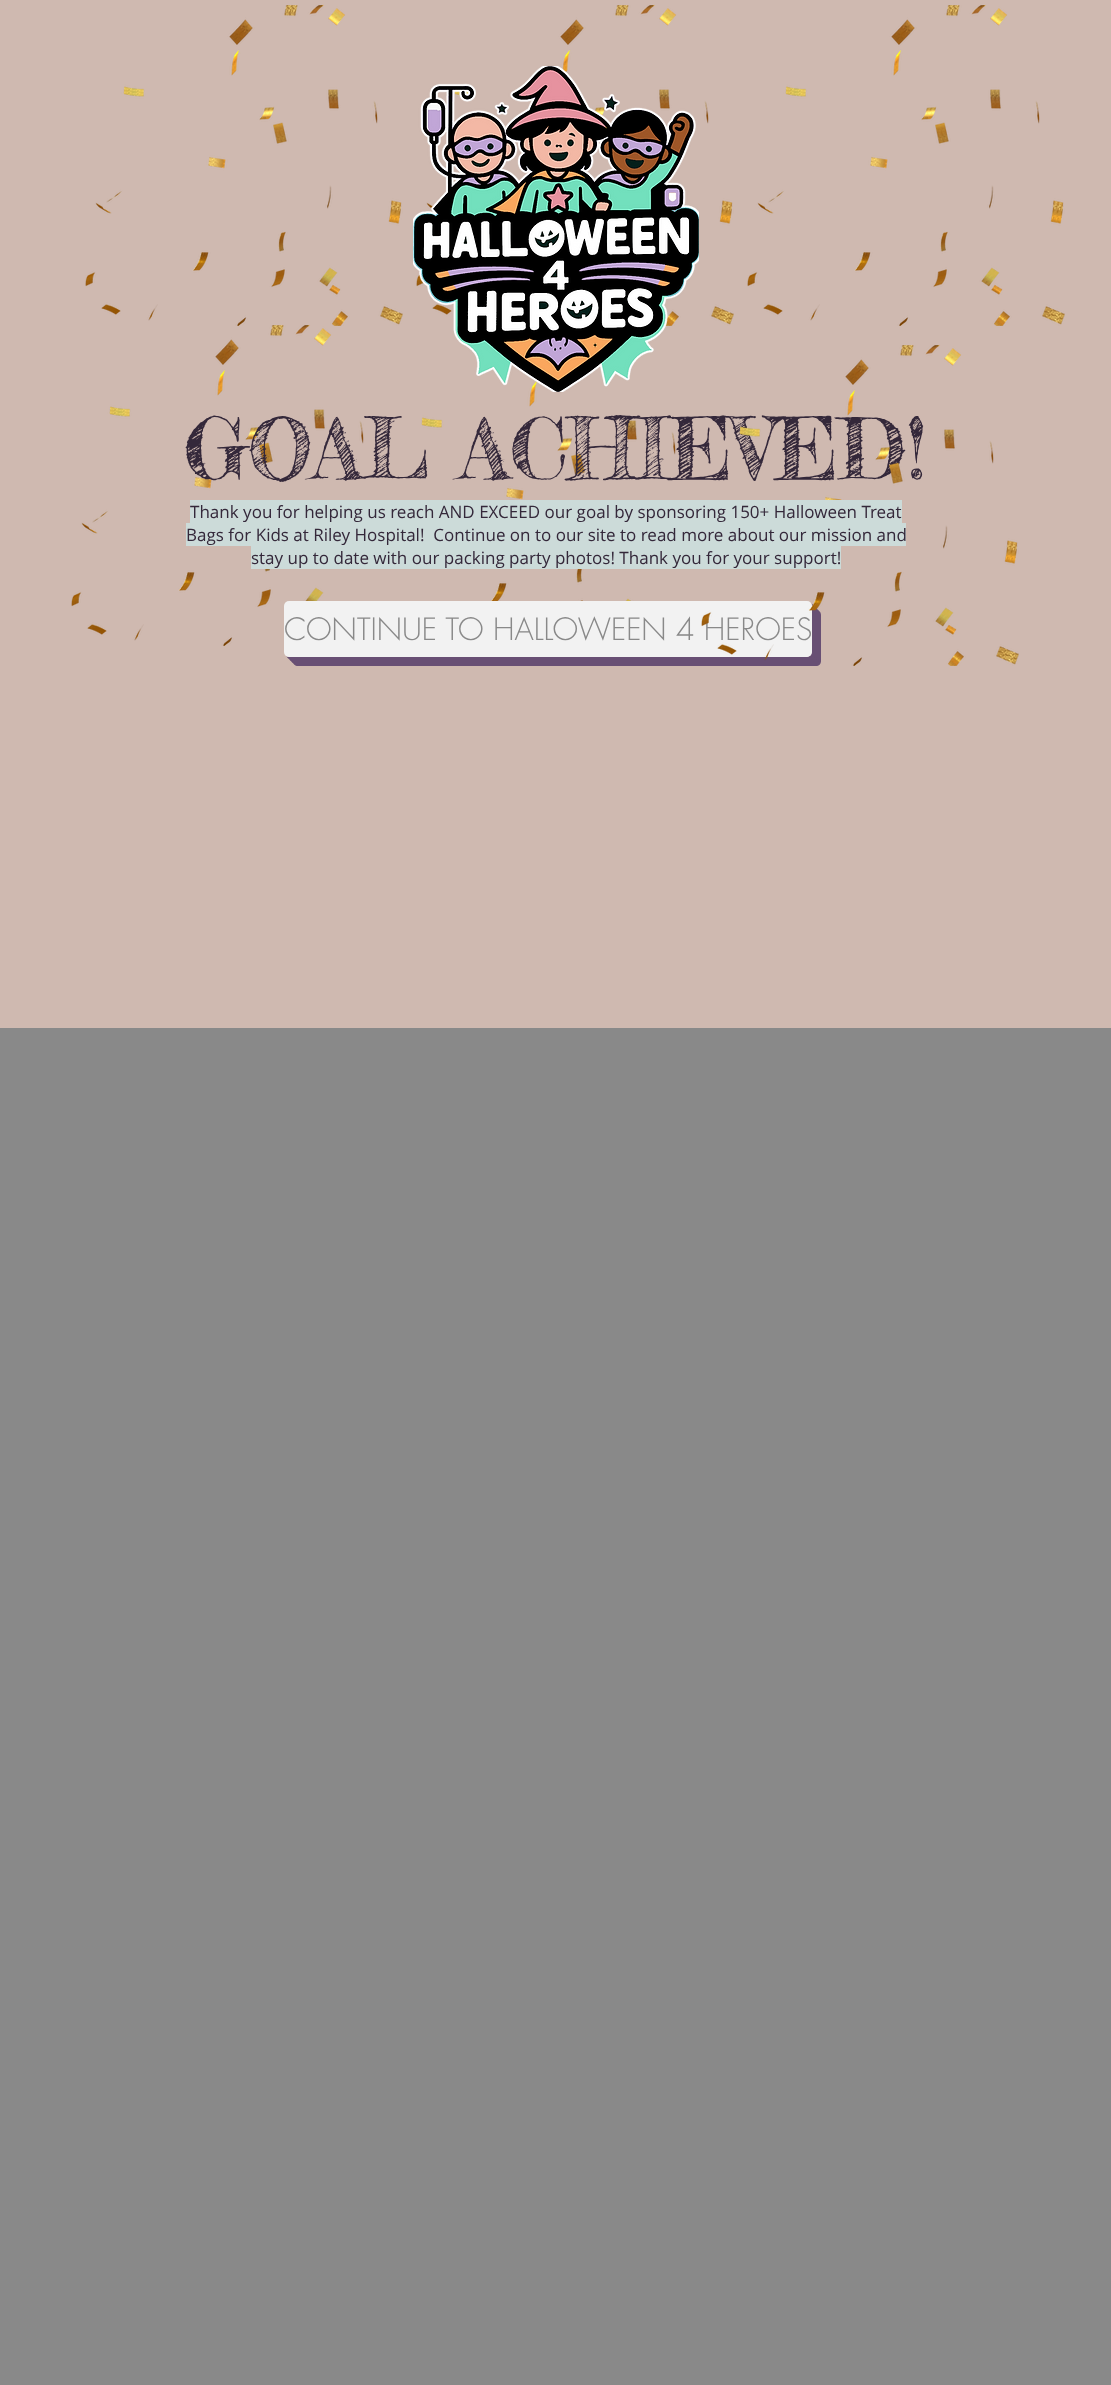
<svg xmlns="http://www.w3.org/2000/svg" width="1111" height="2385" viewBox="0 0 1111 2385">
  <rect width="100%" height="100%" fill="rgb(137,137,137)"/>
  <rect x="0" y="0" width="1111" height="1028" fill="rgb(207,185,176)"/>
  <image x="71" y="324" width="293" height="322" href="pic5.png"/>
  <image x="85" y="4" width="318" height="322" href="pic1.png"/>
  <image x="416" y="4" width="318" height="322" href="pic2.png"/>
  <image x="747" y="4" width="318" height="322" href="pic3.png"/>
  <image x="421" y="381" width="255" height="220" href="pic6.png"/>
  <image x="413" y="66" width="286" height="326" href="pic4.png"/>
  <text x="184" y="479" font-family="Fredericka the Great" font-size="84" fill="rgb(52,40,58)">GOAL ACHIEVED!</text>
  <path d="M293 657V661C293 664 295 666 298 666H816C819 666 821 664 821 661V615C821 612 819 610 816 610H812V652C812 655 810 657 807 657Z" fill="rgb(104,79,116)"/>
  <path d="M291 657V659C291 662 293 664 296 664H814C817 664 819 662 819 659V613C819 610 817 608 814 608H812V652C812 655 810 657 807 657Z" fill="rgb(104,79,116)"/>
  <path d="M289 657C289 660 291 662 294 662H812C815 662 817 660 817 657V611C817 608 815 606 812 606V652C812 655 810 657 807 657Z" fill="rgb(104,79,116)"/>
  <path d="M287 657C288 659 290 660 292 660H810C813 660 815 658 815 655V609C815 607 814 605 812 604V644C812 648 814 657 807 657Z" fill="rgb(104,79,116)"/>
  <path d="M286 656C287 657 288 658 290 658H808C811 658 813 656 813 653V607C813 605 812 604 811 603C812 604 812 605 812 606V652C812 655 810 657 807 657H289C288 657 287 657 286 656Z" fill="rgb(104,79,116)"/>
  <rect x="284" y="601" width="528" height="56" rx="5" fill="rgb(242,242,242)"/>
  <text x="284" y="640" font-family="futura" font-size="30" font-weight="300" fill="rgb(137,137,137)">CONTINUE TO HALLOWEEN 4 HEROES</text>
  <image x="701" y="344" width="318" height="322" href="pic7.png"/>
  <rect x="190" y="500" width="712" height="23" fill="rgb(204,219,217)"/>
  <text x="190" y="518" font-family="Open Sans" font-size="17" fill="rgb(52,40,58)">Thank you for helping us reach AND EXCEED our goal by sponsoring 150+ Halloween Treat</text>
  <rect x="186" y="523" width="720" height="23" fill="rgb(204,219,217)"/>
  <text x="186" y="541" font-family="Open Sans" font-size="17" fill="rgb(52,40,58)" xml:space="preserve">Bags for Kids at Riley Hospital!  Continue on to our site to read more about our mission and</text>
  <rect x="251" y="546" width="590" height="23" fill="rgb(204,219,217)"/>
  <text x="251" y="564" font-family="Open Sans" font-size="17" fill="rgb(52,40,58)">stay up to date with our packing party photos! Thank you for your support!</text>
</svg>
